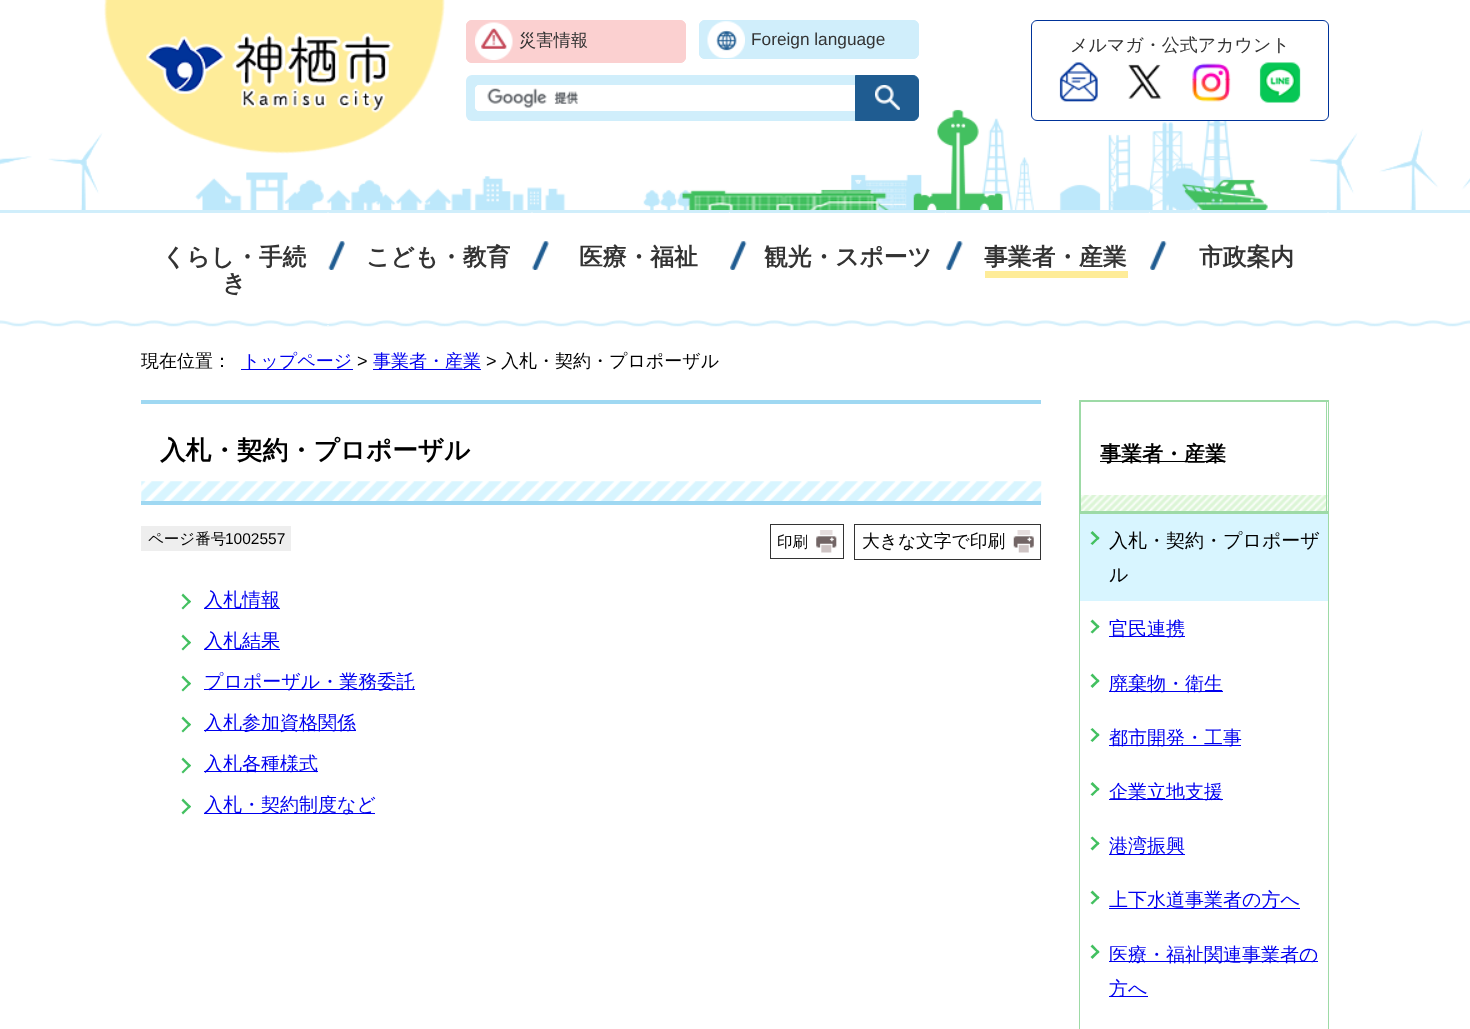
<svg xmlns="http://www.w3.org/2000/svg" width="1470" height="1029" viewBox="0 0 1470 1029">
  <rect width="100%" height="100%" fill="rgb(255,255,255)"/>
  <image x="0" y="96" width="1470" height="114" href="pic1.png"/>
  <image x="104" y="0" width="341" height="154" href="pic2.png"/>
  <image x="146" y="32" width="248" height="81" href="pic3.png"/>
  <rect x="466" y="20" width="220" height="43" rx="6" fill="rgb(251,208,208)"/>
  <image x="475" y="22" width="38" height="38" href="pic4.png"/>
  <rect x="466.5" y="20.5" width="219" height="42" rx="5.5" fill="none" stroke="rgb(251,208,208)"/>
  <text x="519" y="46" font-family="WenQuanYi Zen Hei" font-size="17.25" font-weight="500" fill="rgb(51,51,51)">災害情報</text>
  <rect x="699" y="20" width="220" height="39" rx="6" fill="rgb(208,238,251)"/>
  <image x="707" y="21" width="38" height="37" href="pic5.png"/>
  <rect x="699.5" y="20.5" width="219" height="38" rx="5.5" fill="none" stroke="rgb(208,238,251)"/>
  <text x="751" y="45" font-family="Liberation Sans" font-size="17.25" fill="rgb(51,51,51)">Foreign language</text>
  <rect x="466" y="75" width="453" height="46" rx="6" fill="rgb(208,238,251)"/>
  <path d="M479 85H855V111H479C477 111 475 109 475 107V89C475 87 477 85 479 85Z" fill="rgb(255,255,255)"/>
  <image x="487" y="88" width="92" height="20" href="pic6.png"/>
  <path d="M479 85.5H854.5V110.5H479C477 110.5 475.5 109 475.5 107V89C475.5 87 477 85.5 479 85.5Z" fill="none" stroke="rgb(255,255,255)"/>
  <path d="M855.5 75.5H913C916 75.5 918.5 78 918.5 81V115C918.5 118 916 120.5 913 120.5H855.5Z" fill="rgb(31,92,145)" stroke="rgb(31,92,145)"/>
  <image x="875" y="85" width="25" height="25" href="pic7.png"/>
  <rect x="1031.5" y="20.5" width="297" height="100" rx="5.5" fill="rgb(255,255,255)" stroke="rgb(0,51,153)"/>
  <text x="1070" y="51" font-family="WenQuanYi Zen Hei" font-size="18" font-weight="500" fill="rgb(51,51,51)">メルマガ・公式アカウント</text>
  <image x="1059" y="62" width="242" height="41" href="pic8.png"/>
  <image x="0" y="320" width="1470" height="7" href="pic9.png"/>
  <rect x="0" y="210" width="1470" height="3" fill="rgb(208,238,251)"/>
  <path d="M328 212.5V326" fill="none" stroke="rgb(255,255,255)" stroke-width="1.2" stroke-dasharray="1.25 1.25"/>
  <g font-family="WenQuanYi Zen Hei" font-size="23.75" font-weight="bold" fill="rgb(51,51,51)">
    <text x="162" y="265">くらし・手続</text>
    <text x="222" y="291">き</text>
  </g>
  <image x="328" y="241" width="17" height="29" href="pic10.png"/>
  <path d="M532 212.5V300" fill="none" stroke="rgb(255,255,255)" stroke-width="1.2" stroke-dasharray="1.25 1.25"/>
  <text x="366" y="265" font-family="WenQuanYi Zen Hei" font-size="23.75" font-weight="bold" fill="rgb(51,51,51)">こども・教育</text>
  <image x="532" y="241" width="17" height="29" href="pic11.png"/>
  <path d="M729.5 212.5V300" fill="none" stroke="rgb(255,255,255)" stroke-width="1.2" stroke-dasharray="1.25 1.25"/>
  <text x="579" y="265" font-family="WenQuanYi Zen Hei" font-size="23.75" font-weight="bold" fill="rgb(51,51,51)">医療・福祉</text>
  <image x="730" y="241" width="17" height="29" href="pic12.png"/>
  <path d="M945.5 212.5V300" fill="none" stroke="rgb(255,255,255)" stroke-width="1.2" stroke-dasharray="1.25 1.25"/>
  <text x="764" y="265" font-family="WenQuanYi Zen Hei" font-size="23.75" font-weight="bold" fill="rgb(51,51,51)">観光・スポーツ</text>
  <image x="946" y="241" width="17" height="29" href="pic13.png"/>
  <path d="M1149.5 212.5V300" fill="none" stroke="rgb(255,255,255)" stroke-width="1.2" stroke-dasharray="1.25 1.25"/>
  <text x="984" y="265" font-family="WenQuanYi Zen Hei" font-size="23.75" font-weight="bold" fill="rgb(51,51,51)">事業者・産業</text>
  <rect x="985" y="271" width="143" height="7" fill="rgb(254,236,153)"/>
  <image x="1150" y="241" width="17" height="29" href="pic12.png"/>
  <path d="M1328 212.5V300" fill="none" stroke="rgb(255,255,255)" stroke-width="1.2" stroke-dasharray="1.25 1.25"/>
  <text x="1199" y="265" font-family="WenQuanYi Zen Hei" font-size="23.75" font-weight="bold" fill="rgb(51,51,51)">市政案内</text>
  <text x="141" y="367" font-family="WenQuanYi Zen Hei" font-size="18" font-weight="500" fill="rgb(0,0,0)">現在位置：</text>
  <rect x="241" y="369" width="112" height="1" fill="rgb(0,0,238)"/>
  <text x="242" y="367" font-family="WenQuanYi Zen Hei" font-size="18" font-weight="500" fill="rgb(0,0,238)">トップページ</text>
  <text x="357" y="367" font-family="Liberation Sans" font-size="18" fill="rgb(0,0,0)">&gt;</text>
  <rect x="373" y="369" width="108" height="1" fill="rgb(0,0,238)"/>
  <text x="373" y="367" font-family="WenQuanYi Zen Hei" font-size="18" font-weight="500" fill="rgb(0,0,238)">事業者・産業</text>
  <text x="486" y="367" font-family="Liberation Sans" font-size="18" fill="rgb(0,0,0)">&gt;</text>
  <text x="501" y="367" font-family="WenQuanYi Zen Hei" font-size="18" font-weight="500" fill="rgb(0,0,0)">入札・契約・プロポーザル</text>
  <image x="141" y="481" width="901" height="21" href="pic14.png"/>
  <rect x="141" y="400" width="900" height="4" fill="rgb(159,216,242)"/>
  <rect x="141" y="501" width="900" height="4" fill="rgb(159,216,242)"/>
  <text x="160" y="459" font-family="WenQuanYi Zen Hei" font-size="25.6" font-weight="bold" fill="rgb(0,0,0)">入札・契約・プロポーザル</text>
  <rect x="141" y="526" width="150" height="25" fill="rgb(238,238,238)"/>
  <text x="148" y="544" font-family="WenQuanYi Zen Hei" font-size="15.5" font-weight="500" fill="rgb(0,0,0)">ページ番号</text>
  <text x="225" y="544" font-family="Liberation Sans" font-size="15.5" fill="rgb(0,0,0)">1002557</text>
  <rect x="770.5" y="524.5" width="73" height="34" fill="none" stroke="rgb(51,51,51)"/>
  <image x="816" y="530" width="21" height="23" href="pic15.png"/>
  <text x="777" y="547" font-family="WenQuanYi Zen Hei" font-size="15.5" font-weight="500" fill="rgb(0,0,0)">印刷</text>
  <rect x="854.5" y="524.5" width="186" height="35" fill="none" stroke="rgb(51,51,51)"/>
  <image x="1013" y="530" width="21" height="23" href="pic16.png"/>
  <text x="862" y="547" font-family="WenQuanYi Zen Hei" font-size="17.75" font-weight="500" fill="rgb(0,0,0)">大きな文字で印刷</text>
  <path d="M183 593.5L191 601.5L189.5 603.5L181.5 595.5Z" fill="rgb(67,192,96)"/>
  <path d="M189.5 600L191 601.5L183 609.5L181.5 608Z" fill="rgb(67,192,96)"/>
  <rect x="204" y="608" width="76" height="1" fill="rgb(0,0,238)"/>
  <text x="204" y="606" font-family="WenQuanYi Zen Hei" font-size="19" font-weight="500" fill="rgb(0,0,238)">入札情報</text>
  <path d="M183 634.5L191 642.5L189.5 644.5L181.5 636.5Z" fill="rgb(67,192,96)"/>
  <path d="M189.5 641L191 642.5L183 650.5L181.5 649Z" fill="rgb(67,192,96)"/>
  <rect x="204" y="649" width="76" height="1" fill="rgb(0,0,238)"/>
  <text x="204" y="647" font-family="WenQuanYi Zen Hei" font-size="19" font-weight="500" fill="rgb(0,0,238)">入札結果</text>
  <path d="M183 675.5L191 683.5L189.5 685.5L181.5 677.5Z" fill="rgb(67,192,96)"/>
  <path d="M189.5 682L191 683.5L183 691.5L181.5 690Z" fill="rgb(67,192,96)"/>
  <rect x="204" y="689" width="211" height="1" fill="rgb(0,0,238)"/>
  <text x="204" y="688" font-family="WenQuanYi Zen Hei" font-size="19" font-weight="500" fill="rgb(0,0,238)">プロポーザル・業務委託</text>
  <path d="M183 716.5L191 724.5L189.5 726.5L181.5 718.5Z" fill="rgb(67,192,96)"/>
  <path d="M189.5 723L191 724.5L183 732.5L181.5 731Z" fill="rgb(67,192,96)"/>
  <rect x="204" y="730" width="152" height="1" fill="rgb(0,0,238)"/>
  <text x="204" y="729" font-family="WenQuanYi Zen Hei" font-size="19" font-weight="500" fill="rgb(0,0,238)">入札参加資格関係</text>
  <path d="M183 757.5L191 765.5L189.5 767.5L181.5 759.5Z" fill="rgb(67,192,96)"/>
  <path d="M189.5 764L191 765.5L183 773.5L181.5 772Z" fill="rgb(67,192,96)"/>
  <rect x="204" y="771" width="114" height="1" fill="rgb(0,0,238)"/>
  <text x="204" y="770" font-family="WenQuanYi Zen Hei" font-size="19" font-weight="500" fill="rgb(0,0,238)">入札各種様式</text>
  <path d="M183 798.5L191 806.5L189.5 808.5L181.5 800.5Z" fill="rgb(67,192,96)"/>
  <path d="M189.5 805L191 806.5L183 814.5L181.5 812.5Z" fill="rgb(67,192,96)"/>
  <rect x="204" y="813" width="171" height="1" fill="rgb(0,0,238)"/>
  <text x="204" y="811" font-family="WenQuanYi Zen Hei" font-size="19" font-weight="500" fill="rgb(0,0,238)">入札・契約制度など</text>
  <rect x="1079" y="400" width="250" height="1" fill="rgb(157,218,166)"/>
  <path d="M1329 400V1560L1328 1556V401Z" fill="rgb(157,218,166)"/>
  <path d="M1079 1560V400L1080 401V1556Z" fill="rgb(157,218,166)"/>
  <image x="1081" y="495" width="247" height="16" href="pic17.png"/>
  <rect x="1080" y="401" width="248" height="1" fill="rgb(157,218,166)"/>
  <rect x="1326" y="401" width="1" height="113" fill="rgb(157,218,166)"/>
  <rect x="1080" y="511" width="248" height="3" fill="rgb(157,218,166)"/>
  <rect x="1080" y="401" width="1" height="113" fill="rgb(157,218,166)"/>
  <rect x="1100" y="461" width="125" height="1" fill="rgb(0,0,0)"/>
  <text x="1100" y="461" font-family="WenQuanYi Zen Hei" font-size="21" font-weight="bold" fill="rgb(0,0,0)">事業者・産業</text>
  <rect x="1080" y="514" width="248" height="87" fill="rgb(216,245,255)"/>
  <path d="M1092.5 531L1099.5 538L1098 540L1090.5 533Z" fill="rgb(67,192,96)"/>
  <path d="M1098 536.5L1099.5 538L1092.5 545L1090.5 543.5Z" fill="rgb(67,192,96)"/>
  <g font-family="WenQuanYi Zen Hei" font-size="19" font-weight="500" fill="rgb(0,0,0)">
    <text>
      <tspan x="1109" y="547">入札・契約・プロポーザ</tspan>
      <tspan x="1109" y="581">ル</tspan>
    </text>
  </g>
  <path d="M1092.5 619.5L1099.5 626.5L1098 628.5L1090.5 621.5Z" fill="rgb(67,192,96)"/>
  <path d="M1098 625L1099.5 626.5L1092.5 633.5L1090.5 632Z" fill="rgb(67,192,96)"/>
  <rect x="1109" y="636" width="76" height="1" fill="rgb(0,0,238)"/>
  <text x="1109" y="635" font-family="WenQuanYi Zen Hei" font-size="19" font-weight="500" fill="rgb(0,0,238)">官民連携</text>
  <path d="M1092.5 673.5L1099.5 681L1098 682.5L1090.5 675.5Z" fill="rgb(67,192,96)"/>
  <path d="M1098 679L1099.5 681L1092.5 688L1090.5 686Z" fill="rgb(67,192,96)"/>
  <rect x="1109" y="691" width="114" height="1" fill="rgb(0,0,238)"/>
  <text x="1109" y="690" font-family="WenQuanYi Zen Hei" font-size="19" font-weight="500" fill="rgb(0,0,238)">廃棄物・衛生</text>
  <path d="M1092.5 728L1099.5 735L1098 736.5L1090.5 729.5Z" fill="rgb(67,192,96)"/>
  <path d="M1098 733L1099.5 735L1092.5 742L1090.5 740.5Z" fill="rgb(67,192,96)"/>
  <rect x="1109" y="745" width="132" height="1" fill="rgb(0,0,238)"/>
  <text x="1109" y="744" font-family="WenQuanYi Zen Hei" font-size="19" font-weight="500" fill="rgb(0,0,238)">都市開発・工事</text>
  <path d="M1092.5 782L1099.5 789L1098 791L1090.5 784Z" fill="rgb(67,192,96)"/>
  <path d="M1098 787.5L1099.5 789L1092.5 796L1090.5 794.5Z" fill="rgb(67,192,96)"/>
  <rect x="1109" y="799" width="114" height="1" fill="rgb(0,0,238)"/>
  <text x="1109" y="798" font-family="WenQuanYi Zen Hei" font-size="19" font-weight="500" fill="rgb(0,0,238)">企業立地支援</text>
  <path d="M1092.5 836.5L1099.5 843.5L1098 845L1090.5 838Z" fill="rgb(67,192,96)"/>
  <path d="M1098 841.5L1099.5 843.5L1092.5 850.5L1090.5 848.5Z" fill="rgb(67,192,96)"/>
  <rect x="1109" y="854" width="76" height="1" fill="rgb(0,0,238)"/>
  <text x="1109" y="852" font-family="WenQuanYi Zen Hei" font-size="19" font-weight="500" fill="rgb(0,0,238)">港湾振興</text>
  <path d="M1092.5 890.5L1099.5 897.5L1098 899.5L1090.5 892.5Z" fill="rgb(67,192,96)"/>
  <path d="M1098 896L1099.5 897.5L1092.5 904.5L1090.5 903Z" fill="rgb(67,192,96)"/>
  <rect x="1109" y="908" width="191" height="1" fill="rgb(0,0,238)"/>
  <text x="1109" y="906" font-family="WenQuanYi Zen Hei" font-size="19" font-weight="500" fill="rgb(0,0,238)">上下水道事業者の方へ</text>
  <path d="M1092.5 944.5L1099.5 952L1098 953.5L1090.5 946.5Z" fill="rgb(67,192,96)"/>
  <path d="M1098 950L1099.5 952L1092.5 959L1090.5 957Z" fill="rgb(67,192,96)"/>
  <rect x="1109" y="961" width="209" height="1" fill="rgb(0,0,238)"/>
  <text x="1109" y="961" font-family="WenQuanYi Zen Hei" font-size="19" font-weight="500" fill="rgb(0,0,238)">医療・福祉関連事業者の</text>
  <rect x="1109" y="996" width="39" height="1" fill="rgb(0,0,238)"/>
  <text x="1109" y="995" font-family="WenQuanYi Zen Hei" font-size="19" font-weight="500" fill="rgb(0,0,238)">方へ</text>
</svg>
